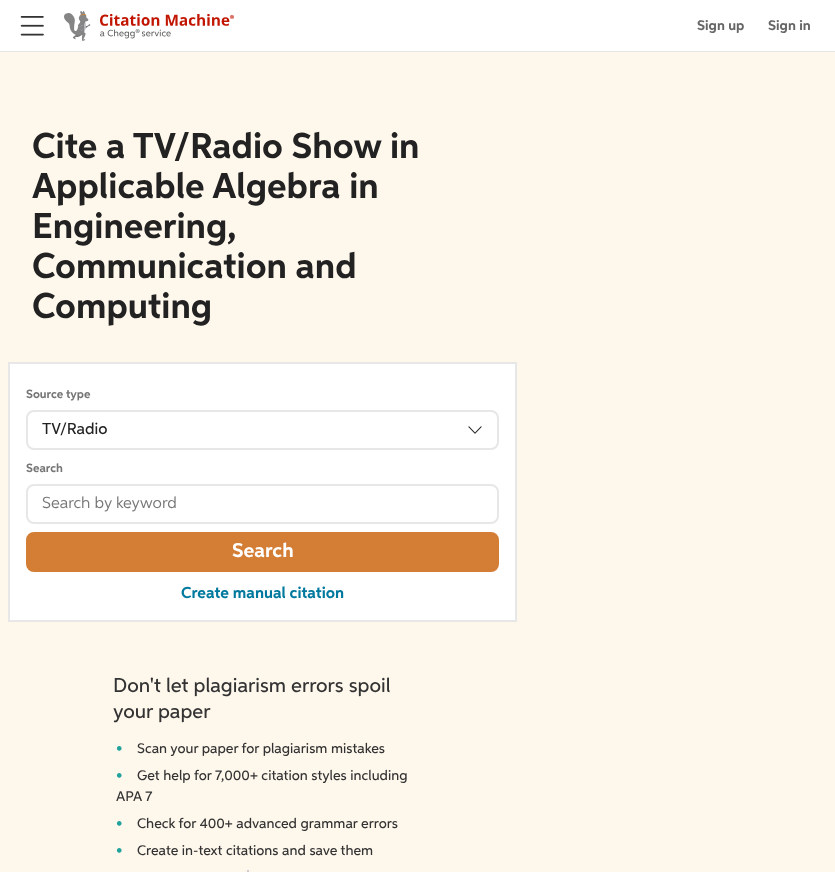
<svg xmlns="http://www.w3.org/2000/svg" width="835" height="872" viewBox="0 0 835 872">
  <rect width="100%" height="100%" fill="rgb(255,255,255)"/>
  <rect x="0" y="51" width="835" height="1" fill="rgb(229,229,229)"/>
  <image x="20" y="16" width="24" height="20" href="pic1.png"/>
  <image x="64" y="11" width="170" height="30" href="pic2.png"/>
  <g font-family="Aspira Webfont" font-size="14" fill="rgb(102,102,102)">
    <text x="697" y="30">Sign up</text>
    <text x="768" y="30">Sign in</text>
  </g>
  <rect x="0" y="52" width="835" height="820" fill="rgb(254,247,236)"/>
  <g font-family="Aspira Webfont" font-size="36" fill="rgb(34,34,34)">
    <text>
      <tspan x="32" y="158">Cite a TV/Radio Show in</tspan>
      <tspan x="32" y="198">Applicable Algebra in</tspan>
      <tspan x="32" y="238">Engineering,</tspan>
      <tspan x="32" y="278">Communication and</tspan>
      <tspan x="32" y="318">Computing</tspan>
    </text>
  </g>
  <rect x="9" y="363" width="507" height="258" fill="rgb(255,255,255)" stroke="rgb(231,231,231)" stroke-width="2"/>
  <text x="26" y="398" font-family="Aspira Webfont" font-size="12" fill="rgb(118,118,118)">Source type</text>
  <rect x="27" y="411" width="471" height="38" rx="7" fill="none" stroke="rgb(231,231,231)" stroke-width="2"/>
  <text x="42" y="434" font-family="'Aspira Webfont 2'" font-size="16" fill="rgb(34,34,34)">TV/Radio</text>
  <image x="468" y="426" width="14" height="8" href="pic3.png"/>
  <text x="26" y="472" font-family="Aspira Webfont" font-size="12" fill="rgb(118,118,118)">Search</text>
  <rect x="27" y="485" width="471" height="38" rx="7" fill="none" stroke="rgb(231,231,231)" stroke-width="2"/>
  <text x="42" y="508" font-family="'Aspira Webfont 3'" font-size="16" fill="rgb(118,118,118)">Search by keyword</text>
  <rect x="27" y="533" width="471" height="38" rx="7" fill="rgb(212,125,53)" stroke="rgb(212,125,53)" stroke-width="2"/>
  <text x="232" y="557" font-family="Aspira Webfont" font-size="20" fill="rgb(255,255,255)">Search</text>
  <text x="181" y="598" font-family="Aspira Webfont" font-size="16" fill="rgb(0,121,158)">Create manual citation</text>
  <g font-family="'Aspira Webfont 2'" font-size="20" fill="rgb(51,51,51)">
    <text>
      <tspan x="113" y="692">Don't let plagiarism errors spoil</tspan>
      <tspan x="113" y="718">your paper</tspan>
    </text>
  </g>
  <text x="116" y="753" font-family="'Aspira Webfont 2'" font-size="14" fill="rgb(33,162,157)">•</text>
  <text x="137" y="753" font-family="'Aspira Webfont 2'" font-size="14" fill="rgb(51,51,51)">Scan your paper for plagiarism mistakes</text>
  <text x="116" y="780" font-family="'Aspira Webfont 2'" font-size="14" fill="rgb(33,162,157)">•</text>
  <g font-family="'Aspira Webfont 2'" font-size="14" fill="rgb(51,51,51)">
    <text x="137" y="780">Get help for 7,000+ citation styles including</text>
    <text x="116" y="801">APA 7</text>
  </g>
  <text x="116" y="828" font-family="'Aspira Webfont 2'" font-size="14" fill="rgb(33,162,157)">•</text>
  <text x="137" y="828" font-family="'Aspira Webfont 2'" font-size="14" fill="rgb(51,51,51)">Check for 400+ advanced grammar errors</text>
  <text x="116" y="855" font-family="'Aspira Webfont 2'" font-size="14" fill="rgb(33,162,157)">•</text>
  <text x="137" y="855" font-family="'Aspira Webfont 2'" font-size="14" fill="rgb(51,51,51)">Create in-text citations and save them</text>
  <rect x="247" y="870" width="2" height="2" fill="rgb(204,204,204)"/>
</svg>
